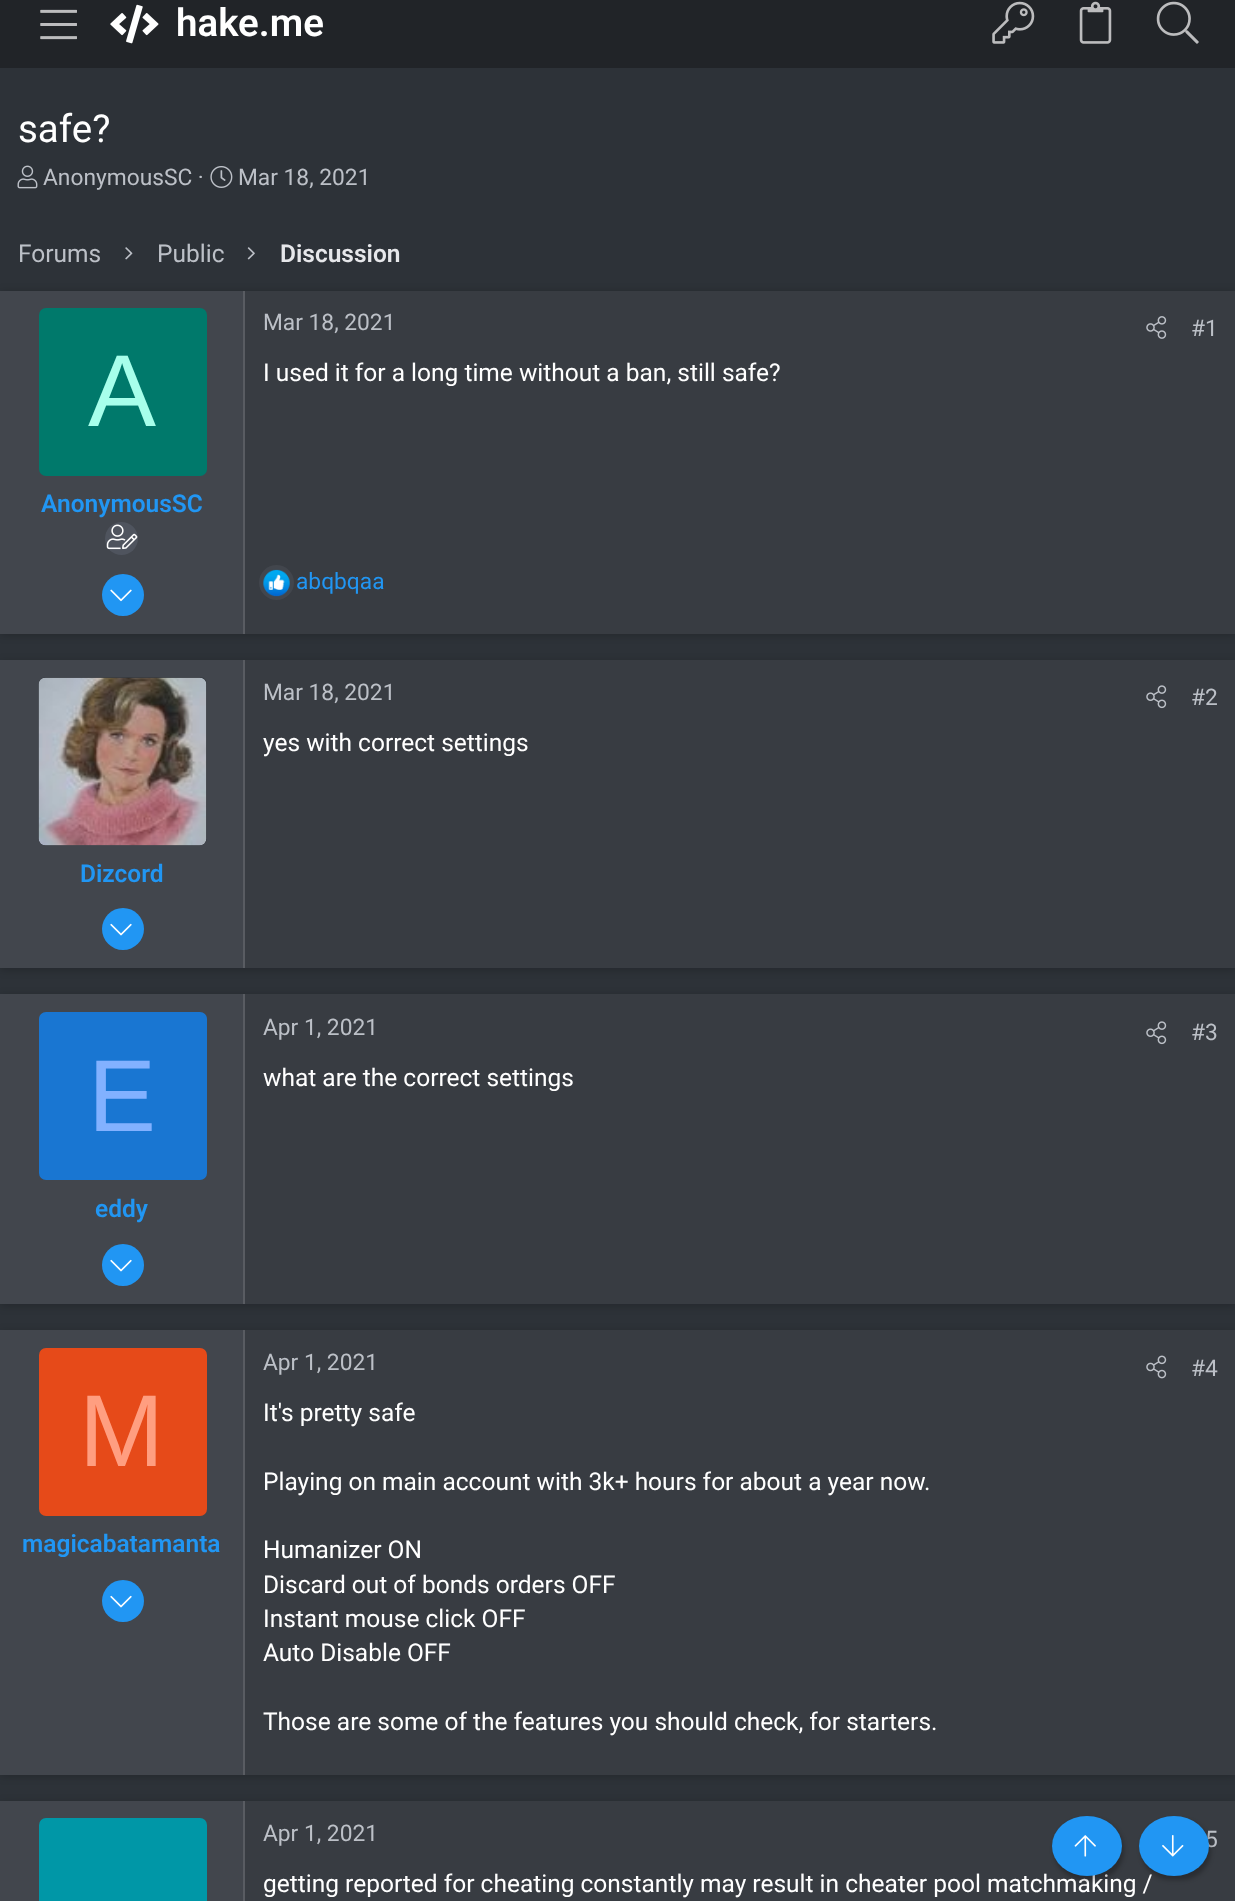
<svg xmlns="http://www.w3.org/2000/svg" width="1235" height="1901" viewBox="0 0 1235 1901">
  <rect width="100%" height="100%" fill="rgb(45,50,56)"/>
  <rect x="0" y="0" width="1235" height="68" fill="rgb(33,36,40)"/>
  <image x="40" y="9" width="37" height="31" href="pic1.png"/>
  <image x="110" y="4" width="49" height="40" href="pic2.png"/>
  <text x="176" y="36" font-family="Roboto" font-size="38.5" font-weight="600" fill="rgb(255,255,255)">hake.me</text>
  <image x="992" y="1" width="43" height="43" href="pic3.png"/>
  <image x="1079" y="1" width="33" height="43" href="pic4.png"/>
  <image x="1156" y="1" width="43" height="43" href="pic5.png"/>
  <text x="18" y="142" font-family="Roboto" font-size="38.5" fill="rgb(255,255,255)">safe?</text>
  <image x="17" y="165" width="21" height="24" href="pic6.png"/>
  <text x="43" y="185" font-family="Roboto" font-size="22.75" fill="rgb(188,192,199)">AnonymousSC ·</text>
  <image x="210" y="166" width="23" height="22" href="pic7.png"/>
  <text x="238" y="185" font-family="Roboto" font-size="22.75" fill="rgb(188,192,199)">Mar 18, 2021</text>
  <text x="18" y="262" font-family="Roboto" font-size="24.5" fill="rgb(188,192,199)">Forums</text>
  <image x="125" y="247" width="8" height="13" href="pic8.png"/>
  <text x="157" y="262" font-family="Roboto" font-size="24.5" fill="rgb(188,192,199)">Public</text>
  <image x="247" y="247" width="8" height="13" href="pic9.png"/>
  <text x="280" y="262" font-family="Roboto" font-size="24.5" font-weight="600" fill="rgb(230,231,234)">Discussion</text>
  <rect x="0" y="292" width="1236" height="343" fill="rgba(0,0,0,0.2)" filter="blur(4.5px)"/>
  <rect x="245" y="291" width="990" height="343" fill="rgb(56,60,66)"/>
  <rect x="0" y="291" width="243" height="343" fill="rgb(66,70,77)"/>
  <rect x="243" y="291" width="2" height="343" fill="rgb(89,92,98)"/>
  <rect x="39" y="308" width="168" height="168" rx="7" fill="rgb(0,121,107)"/>
  <text x="88" y="426" font-family="Liberation Sans" font-size="102" fill="rgb(167,255,235)">A</text>
  <text x="41" y="512" font-family="Roboto" font-size="24.5" font-weight="600" fill="rgb(33,150,243)">AnonymousSC</text>
  <circle cx="121.5" cy="538.5" r="16.5" fill="rgb(79,84,94)"/>
  <image x="106" y="524" width="32" height="26" href="pic10.png"/>
  <circle cx="123" cy="595" r="21" fill="rgb(33,150,243)"/>
  <image x="110" y="589" width="22" height="13" href="pic11.png"/>
  <text x="263" y="330" font-family="Roboto" font-size="22.75" fill="rgb(188,192,199)">Mar 18, 2021</text>
  <image x="1146" y="316" width="21" height="23" href="pic12.png"/>
  <text x="1191" y="336" font-family="Roboto" font-size="22.75" fill="rgb(188,192,199)">#1</text>
  <text x="263" y="381" font-family="Roboto" font-size="24.5" fill="rgb(255,255,255)">I used it for a long time without a ban, still safe?</text>
  <circle cx="276.5" cy="582.5" r="17.5" fill="rgb(66,70,77)"/>
  <image x="263" y="569" width="27" height="28" href="pic13.png"/>
  <text x="296" y="589" font-family="Roboto" font-size="22.75" fill="rgb(33,150,243)">abqbqaa</text>
  <rect x="0" y="662" width="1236" height="308" fill="rgba(0,0,0,0.2)" filter="blur(4.5px)"/>
  <rect x="245" y="660" width="990" height="308" fill="rgb(56,60,66)"/>
  <text x="263" y="700" font-family="Roboto" font-size="22.75" fill="rgb(188,192,199)">Mar 18, 2021</text>
  <image x="1146" y="685" width="21" height="24" href="pic14.png"/>
  <text x="1191" y="705" font-family="Roboto" font-size="22.75" fill="rgb(188,192,199)">#2</text>
  <text x="263" y="751" font-family="Roboto" font-size="24.5" fill="rgb(255,255,255)">yes with correct settings</text>
  <rect x="0" y="660" width="243" height="308" fill="rgb(66,70,77)"/>
  <rect x="243" y="660" width="2" height="308" fill="rgb(89,92,98)"/>
  <rect x="39" y="677" width="168" height="168" rx="7" fill="rgb(56,60,66)"/>
  <image x="38" y="677" width="169" height="169" href="pic15.png"/>
  <text x="80" y="882" font-family="Roboto" font-size="24.5" font-weight="600" fill="rgb(33,150,243)">Dizcord</text>
  <circle cx="123" cy="929" r="21" fill="rgb(33,150,243)"/>
  <image x="110" y="923" width="22" height="13" href="pic16.png"/>
  <rect x="0" y="996" width="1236" height="310" fill="rgba(0,0,0,0.2)" filter="blur(4.5px)"/>
  <rect x="245" y="994" width="990" height="310" fill="rgb(56,60,66)"/>
  <rect x="0" y="994" width="243" height="310" fill="rgb(66,70,77)"/>
  <rect x="243" y="994" width="2" height="310" fill="rgb(89,92,98)"/>
  <rect x="39" y="1012" width="168" height="168" rx="7" fill="rgb(25,118,210)"/>
  <text x="88" y="1131" font-family="Liberation Sans" font-size="102" fill="rgb(130,177,255)">E</text>
  <text x="95" y="1217" font-family="Roboto" font-size="24.5" font-weight="600" fill="rgb(33,150,243)">eddy</text>
  <circle cx="123" cy="1265" r="21" fill="rgb(33,150,243)"/>
  <image x="110" y="1259" width="22" height="13" href="pic16.png"/>
  <text x="263" y="1035" font-family="Roboto" font-size="22.75" fill="rgb(188,192,199)">Apr 1, 2021</text>
  <image x="1146" y="1021" width="21" height="24" href="pic14.png"/>
  <text x="1191" y="1040" font-family="Roboto" font-size="22.75" fill="rgb(188,192,199)">#3</text>
  <text x="263" y="1086" font-family="Roboto" font-size="24.5" fill="rgb(255,255,255)">what are the correct settings</text>
  <rect x="0" y="1332" width="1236" height="444" fill="rgba(0,0,0,0.2)" filter="blur(4.5px)"/>
  <rect x="245" y="1330" width="990" height="445" fill="rgb(56,60,66)"/>
  <rect x="0" y="1330" width="243" height="445" fill="rgb(66,70,77)"/>
  <rect x="243" y="1330" width="2" height="445" fill="rgb(89,92,98)"/>
  <rect x="39" y="1348" width="168" height="168" rx="7" fill="rgb(230,74,25)"/>
  <text x="79" y="1466" font-family="Liberation Sans" font-size="102" fill="rgb(255,158,128)">M</text>
  <text x="22" y="1552" font-family="Roboto" font-size="24.5" font-weight="600" fill="rgb(33,150,243)">magicabatamanta</text>
  <circle cx="123" cy="1601" r="21" fill="rgb(33,150,243)"/>
  <image x="110" y="1595" width="22" height="13" href="pic16.png"/>
  <text x="263" y="1370" font-family="Roboto" font-size="22.75" fill="rgb(188,192,199)">Apr 1, 2021</text>
  <image x="1146" y="1355" width="21" height="24" href="pic17.png"/>
  <text x="1191" y="1376" font-family="Roboto" font-size="22.75" fill="rgb(188,192,199)">#4</text>
  <g font-family="Roboto" font-size="24.5" fill="rgb(255,255,255)">
    <text x="263" y="1421">It's pretty safe</text>
    <text x="263" y="1490">Playing on main account with 3k+ hours for about a year now.</text>
    <text>
      <tspan x="263" y="1558">Humanizer ON</tspan>
      <tspan x="263" y="1593">Discard out of bonds orders OFF</tspan>
      <tspan x="263" y="1627">Instant mouse click OFF</tspan>
      <tspan x="263" y="1661">Auto Disable OFF</tspan>
    </text>
    <text x="263" y="1730">Those are some of the features you should check, for starters.</text>
  </g>
  <rect x="0" y="1803" width="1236" height="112" fill="rgba(0,0,0,0.2)" filter="blur(4.5px)"/>
  <rect x="245" y="1801" width="990" height="100" fill="rgb(56,60,66)"/>
  <rect x="0" y="1801" width="243" height="100" fill="rgb(66,70,77)"/>
  <rect x="243" y="1801" width="2" height="100" fill="rgb(89,92,98)"/>
  <rect x="39" y="1818" width="168" height="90" rx="7" fill="rgb(0,151,167)"/>
  <g font-family="Roboto" font-size="22.75" fill="rgb(188,192,199)">
    <text x="263" y="1841">Apr 1, 2021</text>
    <text x="1205" y="1847">5</text>
  </g>
  <text x="263" y="1892" font-family="Roboto" font-size="24.5" fill="rgb(255,255,255)">getting reported for cheating constantly may result in cheater pool matchmaking /</text>
  <rect x="1054" y="1820" width="70" height="60" rx="30" fill="rgba(0,0,0,0.25)" filter="blur(2px)"/>
  <ellipse cx="1087" cy="1846" rx="35" ry="30" fill="rgb(33,150,243)"/>
  <image x="1074" y="1835" width="22" height="22" href="pic18.png"/>
  <rect x="1141" y="1820" width="70" height="60" rx="30" fill="rgba(0,0,0,0.25)" filter="blur(2px)"/>
  <ellipse cx="1174" cy="1846" rx="35" ry="30" fill="rgb(33,150,243)"/>
  <image x="1162" y="1835" width="22" height="22" href="pic19.png"/>
</svg>
